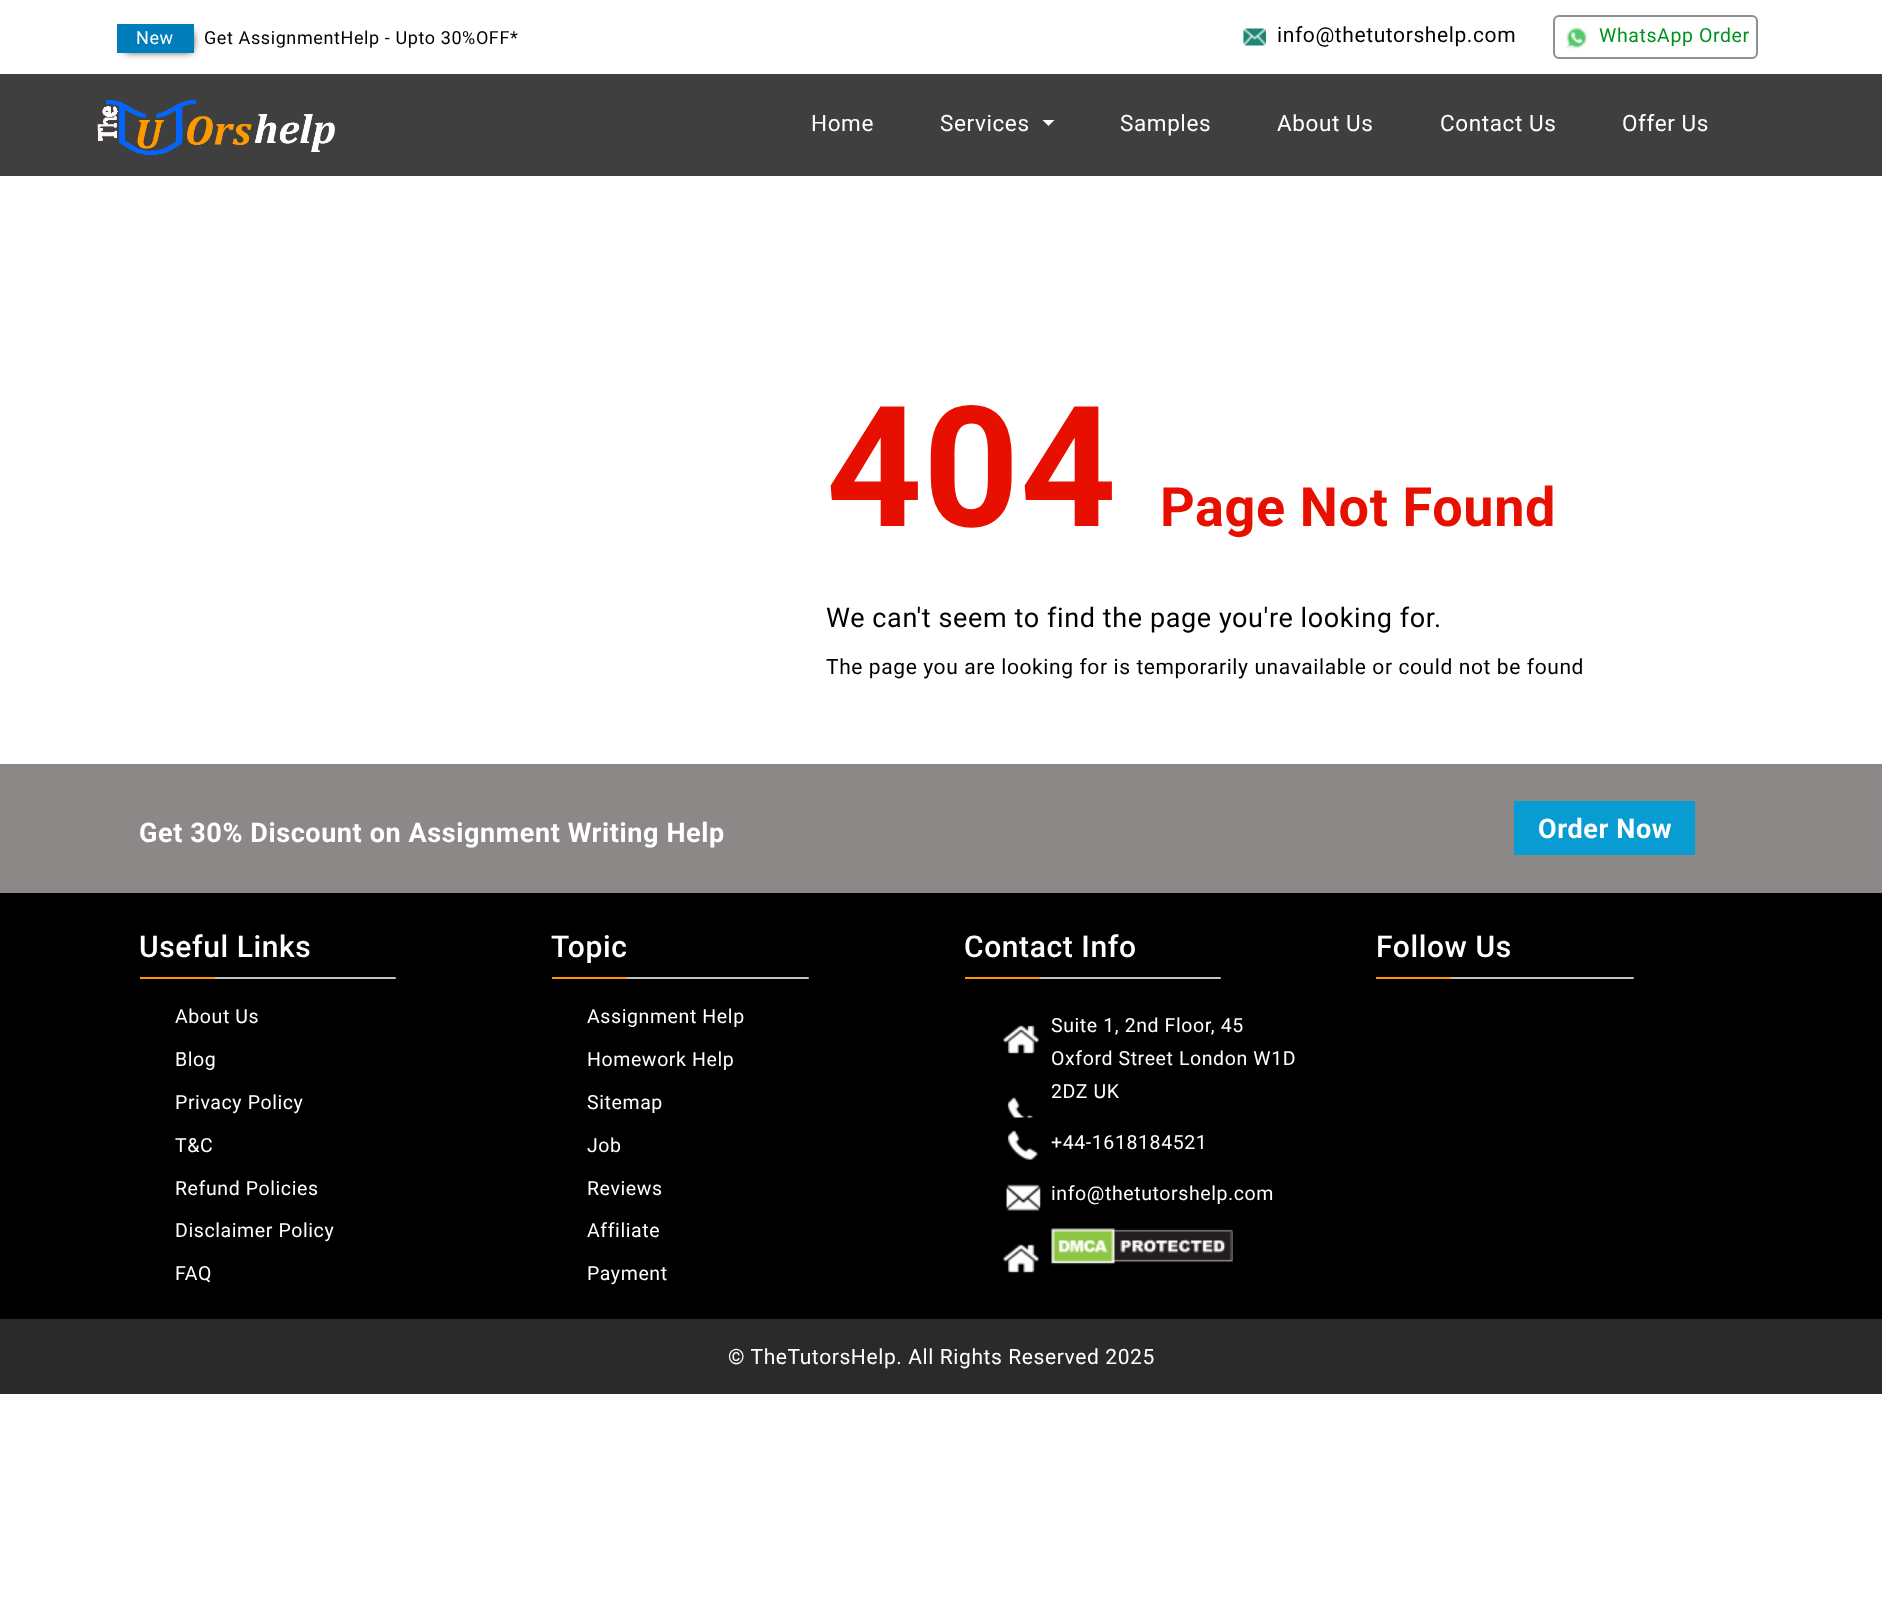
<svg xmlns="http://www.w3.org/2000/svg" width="1882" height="1603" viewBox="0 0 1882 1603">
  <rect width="100%" height="100%" fill="rgb(255,255,255)"/>
  <rect x="125" y="32" width="67" height="19" fill="rgb(0,0,0)" filter="blur(4px)"/>
  <rect x="117" y="24" width="77" height="29" fill="rgb(0,126,187)"/>
  <text x="136" y="44" font-family="Roboto" font-size="18" letter-spacing="0.6" fill="rgb(255,255,255)">New</text>
  <text x="204" y="44" font-family="Roboto" font-size="18" letter-spacing="0.6" fill="rgb(0,0,0)">Get AssignmentHelp - Upto 30%OFF*</text>
  <image x="1243" y="28" width="23" height="18" href="pic1.png"/>
  <text x="1277" y="42" font-family="Roboto" font-size="21" letter-spacing="0.6" fill="rgb(0,0,0)">info@thetutorshelp.com</text>
  <image x="1566" y="27" width="22" height="22" href="pic2.png"/>
  <rect x="1554" y="16" width="203" height="42" rx="5" fill="none" stroke="rgb(143,143,143)" stroke-width="2"/>
  <text x="1599" y="42" font-family="Roboto" font-size="19.5" letter-spacing="0.6" fill="rgb(1,146,29)">WhatsApp Order</text>
  <rect x="0" y="74" width="1882" height="102" fill="rgb(64,63,63)"/>
  <image x="97" y="98" width="238" height="58" href="pic3.png"/>
  <g font-family="Roboto" font-size="22.5" letter-spacing="0.6" fill="rgb(255,255,255)">
    <text x="811" y="131">Home</text>
    <text x="940" y="131">Services</text>
  </g>
  <path d="M1042.5 120H1054.5L1048.5 126Z" fill="rgb(255,255,255)"/>
  <g font-family="Roboto" font-size="22.5" letter-spacing="0.6" fill="rgb(255,255,255)">
    <text x="1120" y="131">Samples</text>
    <text x="1277" y="131">About Us</text>
    <text x="1440" y="131">Contact Us</text>
    <text x="1622" y="131">Offer Us</text>
  </g>
  <text x="826" y="526" font-family="Roboto" font-size="168" font-weight="bold" letter-spacing="0.6" fill="rgb(231,16,0)">404</text>
  <text x="1160" y="526" font-family="Roboto" font-size="54" font-weight="bold" letter-spacing="0.6" fill="rgb(231,16,0)">Page Not Found</text>
  <text x="826" y="627" font-family="Roboto" font-size="27" letter-spacing="0.6" fill="rgb(0,0,0)">We can't seem to find the page you're looking for.</text>
  <text x="826" y="674" font-family="Roboto" font-size="21" letter-spacing="0.6" fill="rgb(0,0,0)">The page you are looking for is temporarily unavailable or could not be found</text>
  <rect x="0" y="764" width="1882" height="129" fill="rgb(140,136,136)"/>
  <text x="139" y="842" font-family="Roboto" font-size="27" font-weight="bold" letter-spacing="0.6" fill="rgb(255,255,255)">Get 30% Discount on Assignment Writing Help</text>
  <rect x="1514" y="801" width="181" height="54" fill="rgb(8,156,211)"/>
  <text x="1538" y="838" font-family="Roboto" font-size="27" font-weight="bold" letter-spacing="0.6" fill="rgb(255,255,255)">Order Now</text>
  <rect x="0" y="893" width="1882" height="426" fill="rgb(0,0,0)"/>
  <text x="139" y="957" font-family="Roboto" font-size="30" font-weight="500" letter-spacing="0.6" fill="rgb(255,255,255)">Useful Links</text>
  <rect x="140" y="977" width="256" height="2" rx="1" fill="rgb(194,194,194)"/>
  <rect x="140" y="977" width="75" height="2" fill="rgb(254,152,0)"/>
  <g font-family="Roboto" font-size="19.5" letter-spacing="0.6" fill="rgb(255,255,255)">
    <text x="175" y="1023">About Us</text>
    <text x="175" y="1066">Blog</text>
    <text x="175" y="1109">Privacy Policy</text>
    <text x="175" y="1152">T&amp;C</text>
    <text x="175" y="1195">Refund Policies</text>
    <text x="175" y="1237">Disclaimer Policy</text>
    <text x="175" y="1280">FAQ</text>
  </g>
  <text x="551" y="957" font-family="Roboto" font-size="30" font-weight="500" letter-spacing="0.6" fill="rgb(255,255,255)">Topic</text>
  <rect x="552" y="977" width="257" height="2" rx="1" fill="rgb(194,194,194)"/>
  <rect x="552" y="977" width="75" height="2" fill="rgb(254,152,0)"/>
  <g font-family="Roboto" font-size="19.5" letter-spacing="0.6" fill="rgb(255,255,255)">
    <text x="587" y="1023">Assignment Help</text>
    <text x="587" y="1066">Homework Help</text>
    <text x="587" y="1109">Sitemap</text>
    <text x="587" y="1152">Job</text>
    <text x="587" y="1195">Reviews</text>
    <text x="587" y="1237">Affiliate</text>
    <text x="587" y="1280">Payment</text>
  </g>
  <text x="964" y="957" font-family="Roboto" font-size="30" font-weight="500" letter-spacing="0.6" fill="rgb(255,255,255)">Contact Info</text>
  <rect x="965" y="977" width="256" height="2" rx="1" fill="rgb(194,194,194)"/>
  <rect x="965" y="977" width="75" height="2" fill="rgb(254,152,0)"/>
  <image x="1003" y="1025" width="36" height="93" href="pic4.png"/>
  <g font-family="Roboto" font-size="19.5" letter-spacing="0.6" fill="rgb(255,255,255)">
    <text>
      <tspan x="1051" y="1032">Suite 1, 2nd Floor, 45</tspan>
      <tspan x="1051" y="1065">Oxford Street London W1D</tspan>
      <tspan x="1051" y="1098">2DZ UK</tspan>
    </text>
  </g>
  <image x="1007" y="1130" width="31" height="30" href="pic5.png"/>
  <text x="1051" y="1149" font-family="Roboto" font-size="19.5" letter-spacing="0.6" fill="rgb(255,255,255)">+44-1618184521</text>
  <image x="1006" y="1184" width="35" height="27" href="pic6.png"/>
  <text x="1051" y="1200" font-family="Roboto" font-size="19.5" letter-spacing="0.6" fill="rgb(255,255,255)">info@thetutorshelp.com</text>
  <image x="1003" y="1244" width="36" height="29" href="pic7.png"/>
  <image x="1051" y="1228" width="182" height="37" href="pic8.png"/>
  <text x="1376" y="957" font-family="Roboto" font-size="30" font-weight="500" letter-spacing="0.6" fill="rgb(255,255,255)">Follow Us</text>
  <rect x="1376" y="977" width="258" height="2" rx="1" fill="rgb(194,194,194)"/>
  <rect x="1376" y="977" width="75" height="2" fill="rgb(254,152,0)"/>
  <rect x="0" y="1319" width="1882" height="75" fill="rgb(42,42,42)"/>
  <text x="728" y="1364" font-family="Roboto" font-size="21" letter-spacing="0.6" fill="rgb(255,255,255)">© TheTutorsHelp. All Rights Reserved 2025</text>
</svg>
